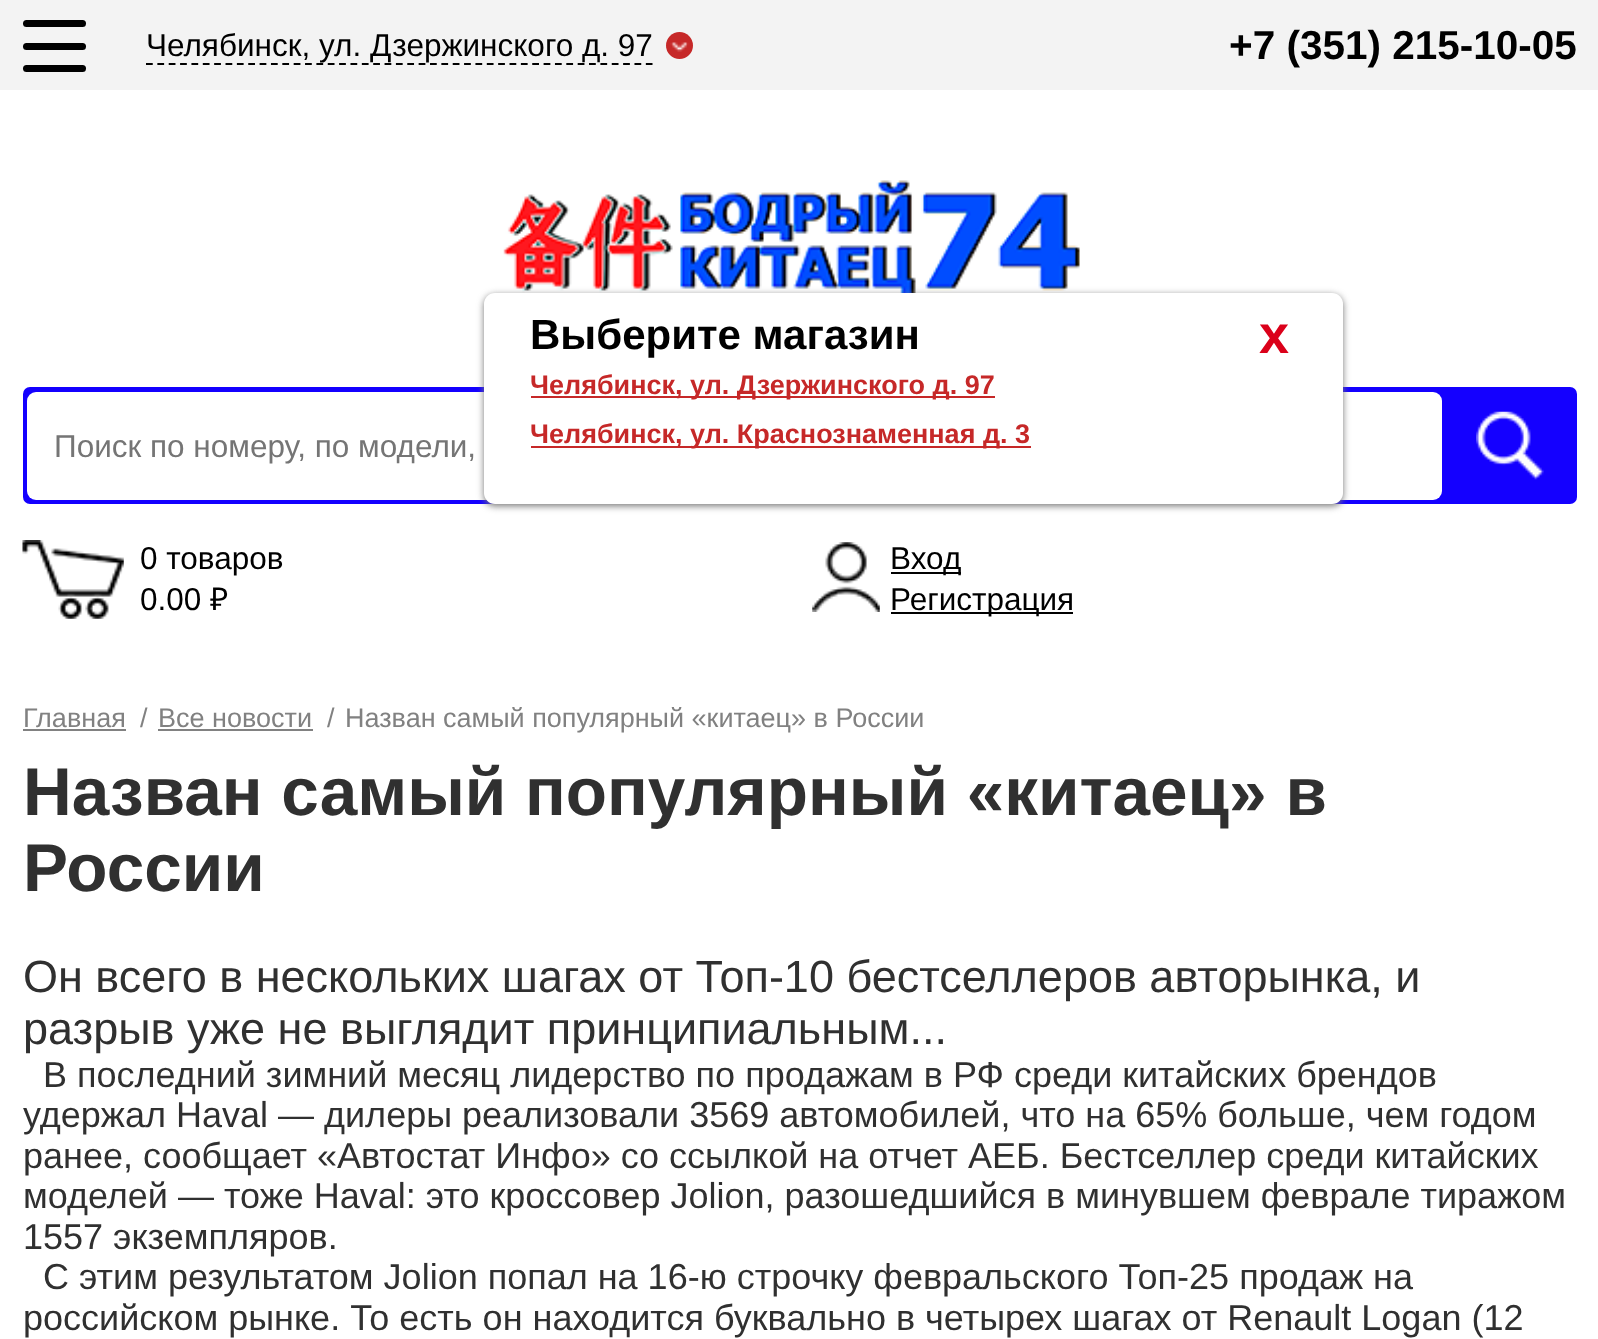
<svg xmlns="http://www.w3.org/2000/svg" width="1598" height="1339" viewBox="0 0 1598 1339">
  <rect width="100%" height="100%" fill="rgb(255,255,255)"/>
  <rect x="0" y="0" width="1598" height="90" fill="rgb(243,243,243)"/>
  <rect x="23" y="20" width="63" height="7" rx="3.5" fill="rgb(0,0,0)"/>
  <rect x="23" y="43" width="63" height="7" rx="3.5" fill="rgb(0,0,0)"/>
  <rect x="23" y="65" width="63" height="7" rx="3.5" fill="rgb(0,0,0)"/>
  <path d="M146 64H652.5" fill="none" stroke="rgb(0,0,0)" stroke-width="2.2" stroke-dasharray="6.75 4.61"/>
  <text x="146" y="56" font-family="Liberation Sans" font-size="31.5" fill="rgb(0,0,0)">Челябинск, ул. Дзержинского д. 97</text>
  <circle cx="679.5" cy="45.5" r="13.5" fill="rgb(198,40,40)"/>
  <image x="670" y="42" width="19" height="10" href="pic1.png"/>
  <text x="1229" y="59" font-family="Liberation Sans" font-size="40.5" font-weight="bold" fill="rgb(0,0,0)">+7 (351) 215-10-05</text>
  <image x="503" y="180" width="577" height="113" href="pic2.png"/>
  <rect x="23" y="387" width="1554" height="117" rx="7" fill="rgb(20,0,255)"/>
  <rect x="27" y="392" width="1415" height="108" rx="9" fill="rgb(255,255,255)"/>
  <text x="54" y="457" font-family="Liberation Sans" font-size="31.5" fill="rgb(117,117,117)">Поиск по номеру, по модели,</text>
  <image x="1476" y="411" width="68" height="69" href="pic3.png"/>
  <image x="22" y="540" width="102" height="79" href="pic4.png"/>
  <g font-family="Liberation Sans" font-size="31.5" fill="rgb(0,0,0)">
    <text>
      <tspan x="140" y="569">0 товаров</tspan>
      <tspan x="140" y="610">0.00</tspan>
    </text>
  </g>
  <text x="210" y="610" font-family="Noto Sans" font-size="31.5" fill="rgb(0,0,0)">₽</text>
  <image x="812" y="542" width="68" height="70" href="pic5.png"/>
  <rect x="891" y="572" width="70" height="2" fill="rgb(0,0,0)"/>
  <text x="890" y="569" font-family="Liberation Sans" font-size="31.5" fill="rgb(0,0,0)">Вход</text>
  <rect x="891" y="612" width="182" height="2" fill="rgb(0,0,0)"/>
  <text x="890" y="610" font-family="Liberation Sans" font-size="31.5" fill="rgb(0,0,0)">Регистрация</text>
  <text x="23" y="727" font-family="Liberation Sans" font-size="27" fill="rgb(129,129,129)">Главная</text>
  <rect x="23" y="729" width="103" height="2" fill="rgb(129,129,129)"/>
  <g font-family="Liberation Sans" font-size="27" fill="rgb(129,129,129)">
    <text x="140" y="727">/</text>
    <text x="158" y="727">Все новости</text>
  </g>
  <rect x="158" y="729" width="155" height="2" fill="rgb(129,129,129)"/>
  <g font-family="Liberation Sans" font-size="27" fill="rgb(129,129,129)">
    <text x="327" y="727">/</text>
    <text x="345" y="727">Назван самый популярный «китаец» в России</text>
  </g>
  <g font-family="Liberation Sans" font-size="67.5" font-weight="bold" fill="rgb(48,48,48)">
    <text>
      <tspan x="23" y="815">Назван самый популярный «китаец» в</tspan>
      <tspan x="23" y="891">России</tspan>
    </text>
  </g>
  <g font-family="Liberation Sans" font-size="45" fill="rgb(48,48,48)">
    <text>
      <tspan x="23" y="992">Он всего в нескольких шагах от Топ-10 бестселлеров авторынка, и</tspan>
      <tspan x="23" y="1044">разрыв уже не выглядит принципиальным...</tspan>
    </text>
  </g>
  <g font-family="Liberation Sans" font-size="36" fill="rgb(48,48,48)">
    <text x="43" y="1087">В последний зимний месяц лидерство по продажам в РФ среди китайских брендов</text>
    <text>
      <tspan x="23" y="1127">удержал Haval — дилеры реализовали 3569 автомобилей, что на 65% больше, чем годом</tspan>
      <tspan x="23" y="1168">ранее, сообщает «Автостат Инфо» со ссылкой на отчет АЕБ. Бестселлер среди китайских</tspan>
      <tspan x="23" y="1208">моделей — тоже Haval: это кроссовер Jolion, разошедшийся в минувшем феврале тиражом</tspan>
      <tspan x="23" y="1249">1557 экземпляров.</tspan>
    </text>
    <text x="43" y="1289">С этим результатом Jolion попал на 16-ю строчку февральского Топ-25 продаж на</text>
    <text x="23" y="1330">российском рынке. То есть он находится буквально в четырех шагах от Renault Logan (12</text>
  </g>
  <rect x="484" y="295" width="859" height="211" rx="11" fill="rgb(119,119,119)" filter="blur(3.5px)"/>
  <rect x="484" y="293" width="859" height="211" rx="11" fill="rgb(255,255,255)"/>
  <text x="530" y="349" font-family="Liberation Sans" font-size="42" font-weight="bold" fill="rgb(0,0,0)">Выберите магазин</text>
  <text x="1259" y="353" font-family="Liberation Sans" font-size="54" font-weight="bold" fill="rgb(219,1,26)">x</text>
  <rect x="531" y="396" width="464" height="2" fill="rgb(198,40,40)"/>
  <text x="530" y="394" font-family="Liberation Sans" font-size="27" font-weight="bold" fill="rgb(198,40,40)">Челябинск, ул. Дзержинского д. 97</text>
  <rect x="531" y="446" width="500" height="2" fill="rgb(198,40,40)"/>
  <text x="530" y="443" font-family="Liberation Sans" font-size="27" font-weight="bold" fill="rgb(198,40,40)">Челябинск, ул. Краснознаменная д. 3</text>
</svg>
